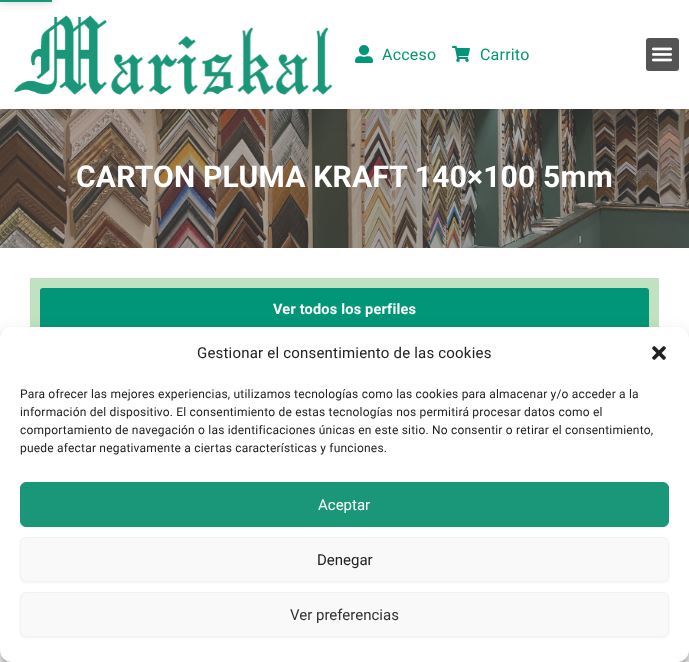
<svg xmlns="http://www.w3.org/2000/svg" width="689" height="662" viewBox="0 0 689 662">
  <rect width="100%" height="100%" fill="rgb(255,255,255)"/>
  <image x="14" y="15" width="319" height="80" href="pic1.png"/>
  <rect x="0" y="-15" width="52" height="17" fill="rgba(0,0,0,0.2)" filter="blur(5px)"/>
  <rect x="0" y="0" width="52" height="2" fill="rgb(26,151,120)"/>
  <image x="355" y="45" width="18" height="18" href="pic2.png"/>
  <text x="382" y="60" font-family="Roboto" font-size="16" letter-spacing="0.2" fill="rgb(0,150,119)">Acceso</text>
  <image x="452" y="46" width="18" height="16" href="pic3.png"/>
  <text x="480" y="60" font-family="Roboto" font-size="16" letter-spacing="0.2" fill="rgb(0,150,119)">Carrito</text>
  <rect x="646" y="38" width="33" height="33" rx="3" fill="rgb(84,84,84)"/>
  <image x="651" y="47" width="22" height="15" href="pic4.png"/>
  <image x="0" y="109" width="689" height="139" href="pic5.png"/>
  <text x="76" y="187" font-family="Roboto" font-size="30" font-weight="bold" letter-spacing="0.2" fill="rgb(255,255,255)">CARTON PLUMA KRAFT 140×100 5mm</text>
  <rect x="30" y="278" width="629" height="49" fill="rgb(192,226,193)"/>
  <rect x="40" y="288" width="609" height="43" rx="3" fill="rgb(0,150,119)"/>
  <text x="273" y="314" font-family="Roboto" font-size="14.5" font-weight="bold" letter-spacing="0.2" fill="rgb(255,255,255)">Ver todos los perfiles</text>
  <rect x="0" y="333" width="689" height="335" rx="12" fill="rgba(0,0,0,0.23)" filter="blur(3px)"/>
  <rect x="0" y="337" width="689" height="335" rx="12" fill="rgba(0,0,0,0.19)" filter="blur(10px)"/>
  <rect x="0" y="327" width="689" height="335" rx="12" fill="rgb(255,255,255)"/>
  <text x="197" y="358" font-family="Roboto" font-size="15" letter-spacing="0.2" fill="rgb(34,34,34)">Gestionar el consentimiento de las cookies</text>
  <image x="652" y="346" width="14" height="14" href="pic6.png"/>
  <g font-family="Roboto" font-size="12" letter-spacing="0.2" fill="rgb(34,34,34)">
    <text>
      <tspan x="20" y="398">Para ofrecer las mejores experiencias, utilizamos tecnologías como las cookies para almacenar y/o acceder a la</tspan>
      <tspan x="20" y="416">información del dispositivo. El consentimiento de estas tecnologías nos permitirá procesar datos como el</tspan>
      <tspan x="20" y="434">comportamiento de navegación o las identificaciones únicas en este sitio. No consentir o retirar el consentimiento,</tspan>
      <tspan x="20" y="452">puede afectar negativamente a ciertas características y funciones.</tspan>
    </text>
  </g>
  <rect x="20" y="483" width="649" height="45" rx="6" fill="rgba(0,0,0,0.05)" filter="blur(1px)"/>
  <rect x="20.5" y="482.5" width="648" height="44" rx="5.5" fill="rgb(26,151,120)" stroke="rgb(26,151,120)"/>
  <text x="318" y="510" font-family="Roboto" font-size="15" fill="rgb(255,255,255)">Aceptar</text>
  <rect x="20" y="538" width="649" height="45" rx="6" fill="rgba(0,0,0,0.05)" filter="blur(1px)"/>
  <rect x="20.5" y="537.5" width="648" height="44" rx="5.5" fill="rgb(249,249,249)" stroke="rgb(242,242,242)"/>
  <text x="317" y="565" font-family="Roboto" font-size="15" fill="rgb(34,34,34)">Denegar</text>
  <rect x="20" y="593" width="649" height="45" rx="6" fill="rgba(0,0,0,0.05)" filter="blur(1px)"/>
  <rect x="20.5" y="592.5" width="648" height="44" rx="5.5" fill="rgb(249,249,249)" stroke="rgb(242,242,242)"/>
  <text x="290" y="620" font-family="Roboto" font-size="15" fill="rgb(51,51,51)">Ver preferencias</text>
</svg>
